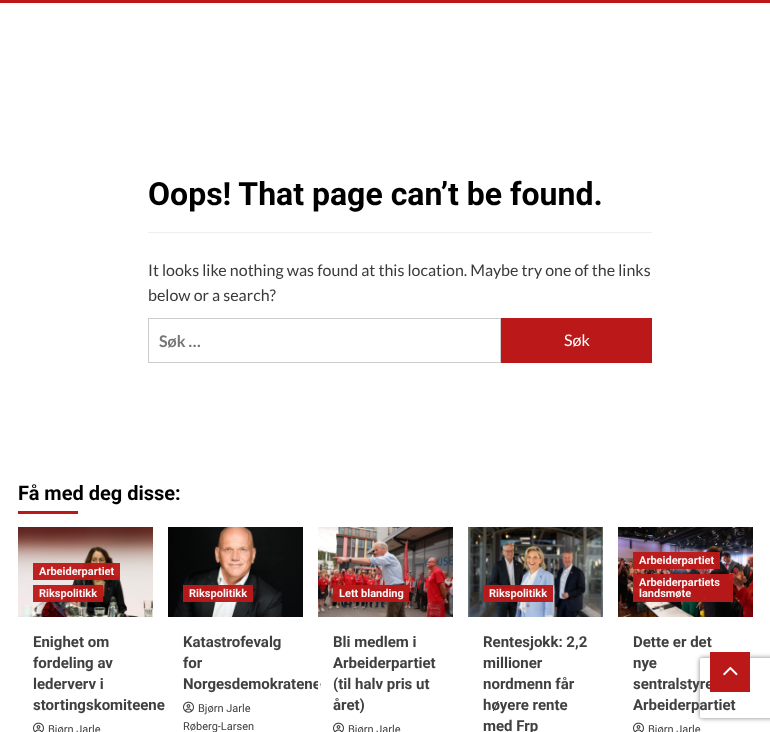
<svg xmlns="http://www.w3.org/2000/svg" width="770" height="732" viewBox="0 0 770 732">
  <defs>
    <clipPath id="clip1"><path d="M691 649H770V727H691ZM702 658H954C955 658 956 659 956 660V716C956 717 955 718 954 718H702C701 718 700 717 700 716V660C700 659 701 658 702 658Z" clip-rule="evenodd"/></clipPath>
  </defs>
  <rect width="100%" height="100%" fill="rgb(255,255,255)"/>
  <rect x="0" y="0" width="770" height="3" fill="rgb(187,25,25)"/>
  <rect x="148" y="232" width="504" height="1" fill="rgb(238,238,238)"/>
  <text x="148" y="205" font-family="Roboto" font-size="32" font-weight="bold" fill="rgb(0,0,0)">Oops! That page can’t be found.</text>
  <g font-family="Lato" font-size="16" fill="rgb(58,58,58)">
    <text>
      <tspan x="148" y="276">It looks like nothing was found at this location. Maybe try one of the links</tspan>
      <tspan x="148" y="301">below or a search?</tspan>
    </text>
  </g>
  <rect x="148.5" y="318.5" width="352" height="44" fill="none" stroke="rgb(204,204,204)"/>
  <text x="159" y="347" font-family="Lato" font-size="16" font-weight="bold" fill="rgb(117,117,117)">Søk …</text>
  <rect x="501" y="318" width="151" height="45" fill="rgb(187,25,25)"/>
  <text x="564" y="346" font-family="Lato" font-size="16" fill="rgb(255,255,255)">Søk</text>
  <text x="18" y="500" font-family="Roboto" font-size="20" font-weight="bold" fill="rgb(0,0,0)">Få med deg disse:</text>
  <rect x="18" y="511" width="60" height="3" fill="rgb(187,25,25)"/>
  <image x="18" y="527" width="135" height="90" href="pic1.png"/>
  <rect x="33" y="563" width="87" height="17" fill="rgba(187,25,25,0.96)"/>
  <text x="39" y="575" font-family="Roboto" font-size="11" font-weight="bold" fill="rgb(252,246,246)">Arbeiderpartiet</text>
  <rect x="33" y="585" width="70" height="17" fill="rgba(187,25,25,0.96)"/>
  <text x="39" y="597" font-family="Roboto" font-size="11" font-weight="bold" fill="rgb(252,246,246)">Rikspolitikk</text>
  <g font-family="Roboto" font-size="15" font-weight="bold" fill="rgb(64,64,64)">
    <text>
      <tspan x="33" y="647">Enighet om</tspan>
      <tspan x="33" y="668">fordeling av</tspan>
      <tspan x="33" y="689">lederverv i</tspan>
      <tspan x="33" y="710">stortingskomiteene</tspan>
    </text>
  </g>
  <image x="33" y="722" width="11" height="10" href="pic2.png"/>
  <text x="48" y="733" font-family="Roboto" font-size="11" fill="rgb(64,64,64)">Bjørn Jarle</text>
  <image x="168" y="527" width="135" height="90" href="pic3.png"/>
  <rect x="183" y="585" width="70" height="17" fill="rgba(187,25,25,0.96)"/>
  <text x="189" y="597" font-family="Roboto" font-size="11" font-weight="bold" fill="rgb(252,246,246)">Rikspolitikk</text>
  <g font-family="Roboto" font-size="15" font-weight="bold" fill="rgb(64,64,64)">
    <text>
      <tspan x="183" y="647">Katastrofevalg</tspan>
      <tspan x="183" y="668">for</tspan>
      <tspan x="183" y="689">Norgesdemokratene</tspan>
    </text>
  </g>
  <image x="183" y="701" width="11" height="12" href="pic4.png"/>
  <g font-family="Roboto" font-size="11" fill="rgb(64,64,64)">
    <text x="198" y="712">Bjørn Jarle</text>
    <text x="183" y="730">Røberg-Larsen</text>
  </g>
  <rect x="318" y="681" width="2" height="8" fill="rgb(255,255,255)"/>
  <image x="318" y="527" width="135" height="90" href="pic5.png"/>
  <rect x="333" y="585" width="76" height="17" fill="rgba(187,25,25,0.96)"/>
  <text x="339" y="597" font-family="Roboto" font-size="11" font-weight="bold" fill="rgb(252,246,246)">Lett blanding</text>
  <g font-family="Roboto" font-size="15" font-weight="bold" fill="rgb(64,64,64)">
    <text>
      <tspan x="333" y="647">Bli medlem i</tspan>
      <tspan x="333" y="668">Arbeiderpartiet</tspan>
      <tspan x="333" y="689">(til halv pris ut</tspan>
      <tspan x="333" y="710">året)</tspan>
    </text>
  </g>
  <image x="333" y="722" width="11" height="10" href="pic2.png"/>
  <text x="348" y="733" font-family="Roboto" font-size="11" fill="rgb(64,64,64)">Bjørn Jarle</text>
  <image x="468" y="527" width="135" height="90" href="pic6.png"/>
  <rect x="483" y="585" width="70" height="17" fill="rgba(187,25,25,0.96)"/>
  <text x="489" y="597" font-family="Roboto" font-size="11" font-weight="bold" fill="rgb(252,246,246)">Rikspolitikk</text>
  <g font-family="Roboto" font-size="15" font-weight="bold" fill="rgb(64,64,64)">
    <text>
      <tspan x="483" y="647">Rentesjokk: 2,2</tspan>
      <tspan x="483" y="668">millioner</tspan>
      <tspan x="483" y="689">nordmenn får</tspan>
      <tspan x="483" y="710">høyere rente</tspan>
      <tspan x="483" y="731">med Frp</tspan>
    </text>
  </g>
  <image x="618" y="527" width="135" height="90" href="pic7.png"/>
  <rect x="633" y="552" width="87" height="17" fill="rgba(187,25,25,0.96)"/>
  <text x="639" y="564" font-family="Roboto" font-size="11" font-weight="bold" fill="rgb(252,246,246)">Arbeiderpartiet</text>
  <rect x="633" y="574" width="100" height="28" fill="rgba(187,25,25,0.96)"/>
  <g font-family="Roboto" font-size="11" font-weight="bold" fill="rgb(252,246,246)">
    <text>
      <tspan x="639" y="586">Arbeiderpartiets</tspan>
      <tspan x="639" y="597">landsmøte</tspan>
    </text>
  </g>
  <g font-family="Roboto" font-size="15" font-weight="bold" fill="rgb(64,64,64)">
    <text>
      <tspan x="633" y="647">Dette er det</tspan>
      <tspan x="633" y="668">nye</tspan>
      <tspan x="633" y="689">sentralstyre</tspan>
      <tspan x="633" y="710">Arbeiderpartiet</tspan>
    </text>
  </g>
  <image x="633" y="722" width="11" height="10" href="pic2.png"/>
  <text x="648" y="733" font-family="Roboto" font-size="11" fill="rgb(64,64,64)">Bjørn Jarle</text>
  <g clip-path="url(#clip1)">
    <rect x="700" y="658" width="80" height="60" rx="2" fill="rgb(128,128,128)" filter="blur(2.5px)"/>
  </g>
  <rect x="710" y="652" width="40" height="40" fill="rgb(187,25,25)"/>
  <image x="723" y="666" width="15" height="10" href="pic8.png"/>
</svg>
